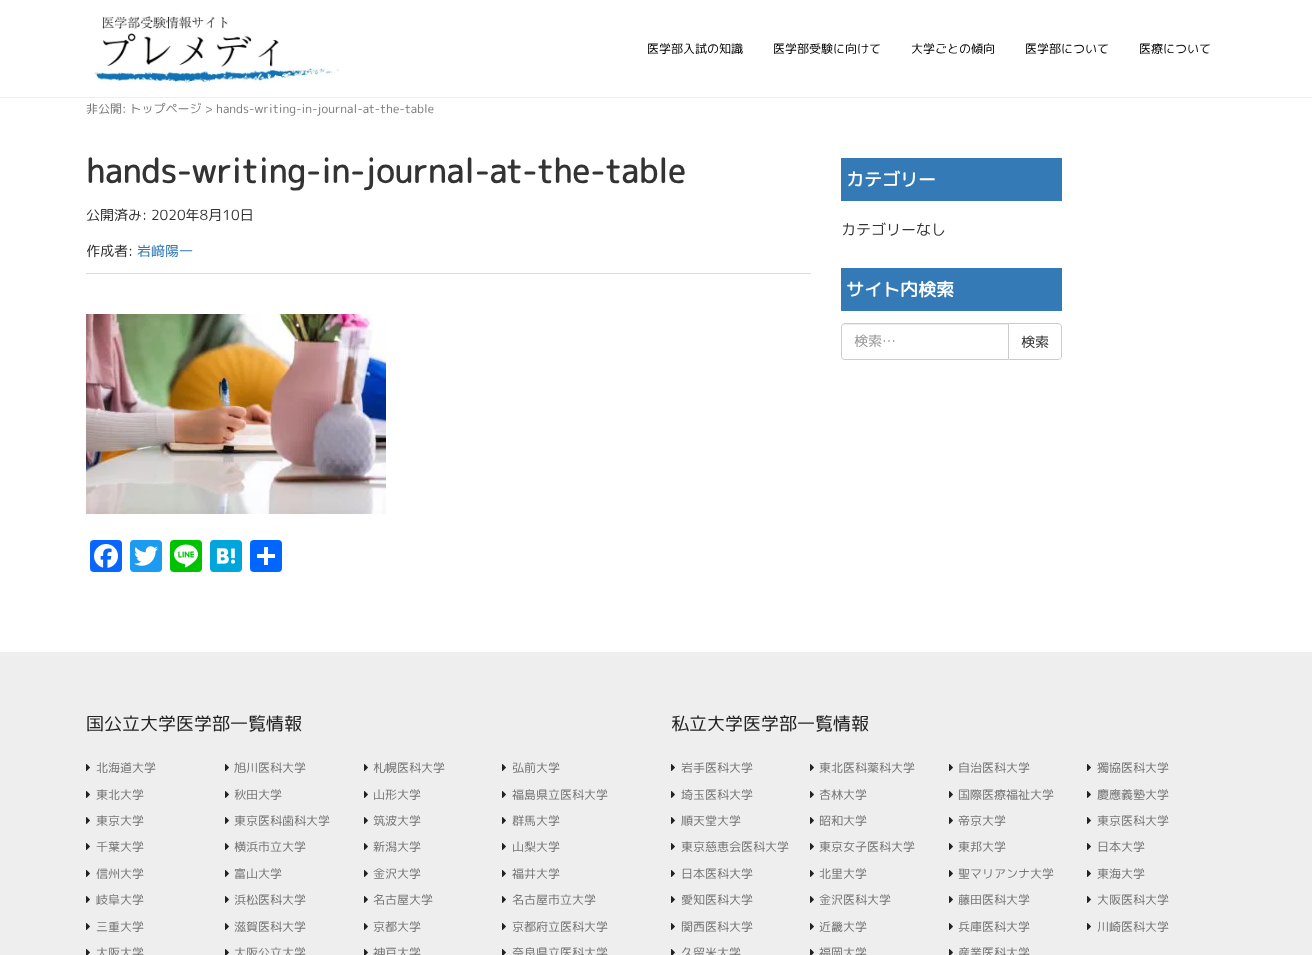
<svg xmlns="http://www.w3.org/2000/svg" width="1312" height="955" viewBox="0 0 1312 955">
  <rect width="100%" height="100%" fill="rgb(255,255,255)"/>
  <rect x="0" y="97" width="1312" height="1" fill="rgb(238,238,238)"/>
  <image x="94" y="15" width="245" height="69" href="pic1.png"/>
  <g font-family="'Rounded Mplus 1c'" font-size="12" fill="rgb(0,0,0)">
    <text x="647" y="53">医学部入試の知識</text>
    <text x="773" y="53">医学部受験に向けて</text>
    <text x="911" y="53">大学ごとの傾向</text>
    <text x="1025" y="53">医学部について</text>
    <text x="1139" y="53">医療について</text>
  </g>
  <text x="86" y="113" font-family="'Rounded Mplus 1c'" font-size="12" fill="rgb(119,119,119)">非公開: トップページ &gt; hands-writing-in-journal-at-the-table</text>
  <text x="86" y="183" font-family="'Rounded Mplus 1c'" font-size="33" font-weight="bold" fill="rgb(51,51,51)">hands-writing-in-journal-at-the-table</text>
  <rect x="86" y="273" width="725" height="1" fill="rgb(221,221,221)"/>
  <g font-family="'Rounded Mplus 1c'" font-size="14" fill="rgb(51,51,51)">
    <text x="86" y="220">公開済み: 2020年8月10日</text>
    <text x="86" y="256">作成者:</text>
  </g>
  <text x="137" y="256" font-family="'Rounded Mplus 1c'" font-size="14" fill="rgb(51,122,183)">岩﨑陽一</text>
  <image x="86" y="314" width="300" height="200" href="pic2.png"/>
  <rect x="90" y="540" width="32" height="32" rx="4" fill="rgb(8,102,255)"/>
  <image x="94" y="544" width="24" height="24" href="pic3.png"/>
  <rect x="130" y="540" width="32" height="32" rx="4" fill="rgb(29,155,240)"/>
  <image x="134" y="546" width="24" height="20" href="pic4.png"/>
  <rect x="170" y="540" width="32" height="32" rx="4" fill="rgb(0,195,0)"/>
  <image x="174" y="544" width="24" height="24" href="pic5.png"/>
  <rect x="210" y="540" width="32" height="32" rx="4" fill="rgb(0,166,219)"/>
  <image x="216" y="548" width="19" height="16" href="pic6.png"/>
  <rect x="250" y="540" width="32" height="32" rx="4" fill="rgb(1,102,255)"/>
  <rect x="264" y="547" width="4" height="18" fill="rgb(255,255,255)"/>
  <rect x="257" y="554" width="18" height="4" fill="rgb(255,255,255)"/>
  <rect x="841" y="158" width="221" height="43" fill="rgb(51,122,183)"/>
  <text x="846" y="186" font-family="'Rounded Mplus 1c'" font-size="18" font-weight="bold" fill="rgb(255,255,255)">カテゴリー</text>
  <text x="841" y="235" font-family="'Rounded Mplus 1c'" font-size="15" fill="rgb(51,51,51)">カテゴリーなし</text>
  <rect x="841" y="268" width="221" height="43" fill="rgb(51,122,183)"/>
  <text x="846" y="296" font-family="'Rounded Mplus 1c'" font-size="18" font-weight="bold" fill="rgb(255,255,255)">サイト内検索</text>
  <path d="M1008.5 323.5H1058C1060 323.5 1061.5 325 1061.5 327V356C1061.5 358 1060 359.5 1058 359.5H1008.5Z" fill="none" stroke="rgb(204,204,204)"/>
  <path d="M845 323H1009V360H845C843 360 841 358 841 356V327C841 325 843 323 845 323Z" fill="rgb(255,255,255)"/>
  <path d="M845 325H1008V324H845C843 324 842 326 842 328C842 326 843 325 845 325Z" fill="rgb(236,236,236)"/>
  <path d="M845 323.5H1008.5V359.5H845C843 359.5 841.5 358 841.5 356V327C841.5 325 843 323.5 845 323.5Z" fill="none" stroke="rgb(204,204,204)"/>
  <text x="854" y="346" font-family="'Rounded Mplus 1c'" font-size="14" fill="rgb(153,153,153)">検索…</text>
  <text x="1021" y="347" font-family="'Rounded Mplus 1c'" font-size="14" fill="rgb(51,51,51)">検索</text>
  <rect x="0" y="652" width="1312" height="303" fill="rgb(238,238,238)"/>
  <text x="86" y="730" font-family="'Rounded Mplus 1c'" font-size="18" fill="rgb(34,34,34)">国公立大学医学部一覧情報</text>
  <image x="86" y="764" width="4" height="7" href="pic7.png"/>
  <text x="96" y="772" font-family="'Rounded Mplus 1c'" font-size="12" fill="rgb(119,119,119)">北海道大学</text>
  <image x="225" y="764" width="4" height="7" href="pic7.png"/>
  <text x="234" y="772" font-family="'Rounded Mplus 1c'" font-size="12" fill="rgb(119,119,119)">旭川医科大学</text>
  <image x="364" y="764" width="4" height="7" href="pic7.png"/>
  <text x="373" y="772" font-family="'Rounded Mplus 1c'" font-size="12" fill="rgb(119,119,119)">札幌医科大学</text>
  <image x="502" y="764" width="4" height="7" href="pic7.png"/>
  <text x="512" y="772" font-family="'Rounded Mplus 1c'" font-size="12" fill="rgb(119,119,119)">弘前大学</text>
  <image x="86" y="791" width="4" height="7" href="pic7.png"/>
  <text x="96" y="799" font-family="'Rounded Mplus 1c'" font-size="12" fill="rgb(119,119,119)">東北大学</text>
  <image x="225" y="791" width="4" height="7" href="pic7.png"/>
  <text x="234" y="799" font-family="'Rounded Mplus 1c'" font-size="12" fill="rgb(119,119,119)">秋田大学</text>
  <image x="364" y="791" width="4" height="7" href="pic7.png"/>
  <text x="373" y="799" font-family="'Rounded Mplus 1c'" font-size="12" fill="rgb(119,119,119)">山形大学</text>
  <image x="502" y="791" width="4" height="7" href="pic7.png"/>
  <text x="512" y="799" font-family="'Rounded Mplus 1c'" font-size="12" fill="rgb(119,119,119)">福島県立医科大学</text>
  <image x="86" y="817" width="4" height="7" href="pic7.png"/>
  <text x="96" y="825" font-family="'Rounded Mplus 1c'" font-size="12" fill="rgb(119,119,119)">東京大学</text>
  <image x="225" y="817" width="4" height="7" href="pic7.png"/>
  <text x="234" y="825" font-family="'Rounded Mplus 1c'" font-size="12" fill="rgb(119,119,119)">東京医科歯科大学</text>
  <image x="364" y="817" width="4" height="7" href="pic7.png"/>
  <text x="373" y="825" font-family="'Rounded Mplus 1c'" font-size="12" fill="rgb(119,119,119)">筑波大学</text>
  <image x="502" y="817" width="4" height="7" href="pic7.png"/>
  <text x="512" y="825" font-family="'Rounded Mplus 1c'" font-size="12" fill="rgb(119,119,119)">群馬大学</text>
  <image x="86" y="843" width="4" height="7" href="pic7.png"/>
  <text x="96" y="851" font-family="'Rounded Mplus 1c'" font-size="12" fill="rgb(119,119,119)">千葉大学</text>
  <image x="225" y="843" width="4" height="7" href="pic7.png"/>
  <text x="234" y="851" font-family="'Rounded Mplus 1c'" font-size="12" fill="rgb(119,119,119)">横浜市立大学</text>
  <image x="364" y="843" width="4" height="7" href="pic7.png"/>
  <text x="373" y="851" font-family="'Rounded Mplus 1c'" font-size="12" fill="rgb(119,119,119)">新潟大学</text>
  <image x="502" y="843" width="4" height="7" href="pic7.png"/>
  <text x="512" y="851" font-family="'Rounded Mplus 1c'" font-size="12" fill="rgb(119,119,119)">山梨大学</text>
  <image x="86" y="870" width="4" height="7" href="pic7.png"/>
  <text x="96" y="878" font-family="'Rounded Mplus 1c'" font-size="12" fill="rgb(119,119,119)">信州大学</text>
  <image x="225" y="870" width="4" height="7" href="pic7.png"/>
  <text x="234" y="878" font-family="'Rounded Mplus 1c'" font-size="12" fill="rgb(119,119,119)">富山大学</text>
  <image x="364" y="870" width="4" height="7" href="pic7.png"/>
  <text x="373" y="878" font-family="'Rounded Mplus 1c'" font-size="12" fill="rgb(119,119,119)">金沢大学</text>
  <image x="502" y="870" width="4" height="7" href="pic7.png"/>
  <text x="512" y="878" font-family="'Rounded Mplus 1c'" font-size="12" fill="rgb(119,119,119)">福井大学</text>
  <image x="86" y="896" width="4" height="7" href="pic7.png"/>
  <text x="96" y="904" font-family="'Rounded Mplus 1c'" font-size="12" fill="rgb(119,119,119)">岐阜大学</text>
  <image x="225" y="896" width="4" height="7" href="pic7.png"/>
  <text x="234" y="904" font-family="'Rounded Mplus 1c'" font-size="12" fill="rgb(119,119,119)">浜松医科大学</text>
  <image x="364" y="896" width="4" height="7" href="pic7.png"/>
  <text x="373" y="904" font-family="'Rounded Mplus 1c'" font-size="12" fill="rgb(119,119,119)">名古屋大学</text>
  <image x="502" y="896" width="4" height="7" href="pic7.png"/>
  <text x="512" y="904" font-family="'Rounded Mplus 1c'" font-size="12" fill="rgb(119,119,119)">名古屋市立大学</text>
  <image x="86" y="923" width="4" height="7" href="pic7.png"/>
  <text x="96" y="931" font-family="'Rounded Mplus 1c'" font-size="12" fill="rgb(119,119,119)">三重大学</text>
  <image x="225" y="923" width="4" height="7" href="pic7.png"/>
  <text x="234" y="931" font-family="'Rounded Mplus 1c'" font-size="12" fill="rgb(119,119,119)">滋賀医科大学</text>
  <image x="364" y="923" width="4" height="7" href="pic7.png"/>
  <text x="373" y="931" font-family="'Rounded Mplus 1c'" font-size="12" fill="rgb(119,119,119)">京都大学</text>
  <image x="502" y="923" width="4" height="7" href="pic7.png"/>
  <text x="512" y="931" font-family="'Rounded Mplus 1c'" font-size="12" fill="rgb(119,119,119)">京都府立医科大学</text>
  <image x="86" y="949" width="4" height="6" href="pic8.png"/>
  <text x="96" y="957" font-family="'Rounded Mplus 1c'" font-size="12" fill="rgb(119,119,119)">大阪大学</text>
  <image x="225" y="949" width="4" height="6" href="pic8.png"/>
  <text x="234" y="957" font-family="'Rounded Mplus 1c'" font-size="12" fill="rgb(119,119,119)">大阪公立大学</text>
  <image x="364" y="949" width="4" height="6" href="pic8.png"/>
  <text x="373" y="957" font-family="'Rounded Mplus 1c'" font-size="12" fill="rgb(119,119,119)">神戸大学</text>
  <image x="502" y="949" width="4" height="6" href="pic8.png"/>
  <text x="512" y="957" font-family="'Rounded Mplus 1c'" font-size="12" fill="rgb(119,119,119)">奈良県立医科大学</text>
  <text x="671" y="730" font-family="'Rounded Mplus 1c'" font-size="18" fill="rgb(34,34,34)">私立大学医学部一覧情報</text>
  <image x="671" y="764" width="4" height="7" href="pic7.png"/>
  <text x="681" y="772" font-family="'Rounded Mplus 1c'" font-size="12" fill="rgb(119,119,119)">岩手医科大学</text>
  <image x="810" y="764" width="4" height="7" href="pic7.png"/>
  <text x="819" y="772" font-family="'Rounded Mplus 1c'" font-size="12" fill="rgb(119,119,119)">東北医科薬科大学</text>
  <image x="949" y="764" width="4" height="7" href="pic7.png"/>
  <text x="958" y="772" font-family="'Rounded Mplus 1c'" font-size="12" fill="rgb(119,119,119)">自治医科大学</text>
  <image x="1087" y="764" width="4" height="7" href="pic7.png"/>
  <text x="1097" y="772" font-family="'Rounded Mplus 1c'" font-size="12" fill="rgb(119,119,119)">獨協医科大学</text>
  <image x="671" y="791" width="4" height="7" href="pic7.png"/>
  <text x="681" y="799" font-family="'Rounded Mplus 1c'" font-size="12" fill="rgb(119,119,119)">埼玉医科大学</text>
  <image x="810" y="791" width="4" height="7" href="pic7.png"/>
  <text x="819" y="799" font-family="'Rounded Mplus 1c'" font-size="12" fill="rgb(119,119,119)">杏林大学</text>
  <image x="949" y="791" width="4" height="7" href="pic7.png"/>
  <text x="958" y="799" font-family="'Rounded Mplus 1c'" font-size="12" fill="rgb(119,119,119)">国際医療福祉大学</text>
  <image x="1087" y="791" width="4" height="7" href="pic7.png"/>
  <text x="1097" y="799" font-family="'Rounded Mplus 1c'" font-size="12" fill="rgb(119,119,119)">慶應義塾大学</text>
  <image x="671" y="817" width="4" height="7" href="pic7.png"/>
  <text x="681" y="825" font-family="'Rounded Mplus 1c'" font-size="12" fill="rgb(119,119,119)">順天堂大学</text>
  <image x="810" y="817" width="4" height="7" href="pic7.png"/>
  <text x="819" y="825" font-family="'Rounded Mplus 1c'" font-size="12" fill="rgb(119,119,119)">昭和大学</text>
  <image x="949" y="817" width="4" height="7" href="pic7.png"/>
  <text x="958" y="825" font-family="'Rounded Mplus 1c'" font-size="12" fill="rgb(119,119,119)">帝京大学</text>
  <image x="1087" y="817" width="4" height="7" href="pic7.png"/>
  <text x="1097" y="825" font-family="'Rounded Mplus 1c'" font-size="12" fill="rgb(119,119,119)">東京医科大学</text>
  <image x="671" y="843" width="4" height="7" href="pic7.png"/>
  <text x="681" y="851" font-family="'Rounded Mplus 1c'" font-size="12" fill="rgb(119,119,119)">東京慈恵会医科大学</text>
  <image x="810" y="843" width="4" height="7" href="pic7.png"/>
  <text x="819" y="851" font-family="'Rounded Mplus 1c'" font-size="12" fill="rgb(119,119,119)">東京女子医科大学</text>
  <image x="949" y="843" width="4" height="7" href="pic7.png"/>
  <text x="958" y="851" font-family="'Rounded Mplus 1c'" font-size="12" fill="rgb(119,119,119)">東邦大学</text>
  <image x="1087" y="843" width="4" height="7" href="pic7.png"/>
  <text x="1097" y="851" font-family="'Rounded Mplus 1c'" font-size="12" fill="rgb(119,119,119)">日本大学</text>
  <image x="671" y="870" width="4" height="7" href="pic7.png"/>
  <text x="681" y="878" font-family="'Rounded Mplus 1c'" font-size="12" fill="rgb(119,119,119)">日本医科大学</text>
  <image x="810" y="870" width="4" height="7" href="pic7.png"/>
  <text x="819" y="878" font-family="'Rounded Mplus 1c'" font-size="12" fill="rgb(119,119,119)">北里大学</text>
  <image x="949" y="870" width="4" height="7" href="pic7.png"/>
  <text x="958" y="878" font-family="'Rounded Mplus 1c'" font-size="12" fill="rgb(119,119,119)">聖マリアンナ大学</text>
  <image x="1087" y="870" width="4" height="7" href="pic7.png"/>
  <text x="1097" y="878" font-family="'Rounded Mplus 1c'" font-size="12" fill="rgb(119,119,119)">東海大学</text>
  <image x="671" y="896" width="4" height="7" href="pic7.png"/>
  <text x="681" y="904" font-family="'Rounded Mplus 1c'" font-size="12" fill="rgb(119,119,119)">愛知医科大学</text>
  <image x="810" y="896" width="4" height="7" href="pic7.png"/>
  <text x="819" y="904" font-family="'Rounded Mplus 1c'" font-size="12" fill="rgb(119,119,119)">金沢医科大学</text>
  <image x="949" y="896" width="4" height="7" href="pic7.png"/>
  <text x="958" y="904" font-family="'Rounded Mplus 1c'" font-size="12" fill="rgb(119,119,119)">藤田医科大学</text>
  <image x="1087" y="896" width="4" height="7" href="pic7.png"/>
  <text x="1097" y="904" font-family="'Rounded Mplus 1c'" font-size="12" fill="rgb(119,119,119)">大阪医科大学</text>
  <image x="671" y="923" width="4" height="7" href="pic7.png"/>
  <text x="681" y="931" font-family="'Rounded Mplus 1c'" font-size="12" fill="rgb(119,119,119)">関西医科大学</text>
  <image x="810" y="923" width="4" height="7" href="pic7.png"/>
  <text x="819" y="931" font-family="'Rounded Mplus 1c'" font-size="12" fill="rgb(119,119,119)">近畿大学</text>
  <image x="949" y="923" width="4" height="7" href="pic7.png"/>
  <text x="958" y="931" font-family="'Rounded Mplus 1c'" font-size="12" fill="rgb(119,119,119)">兵庫医科大学</text>
  <image x="1087" y="923" width="4" height="7" href="pic7.png"/>
  <text x="1097" y="931" font-family="'Rounded Mplus 1c'" font-size="12" fill="rgb(119,119,119)">川崎医科大学</text>
  <image x="671" y="949" width="4" height="6" href="pic8.png"/>
  <text x="681" y="957" font-family="'Rounded Mplus 1c'" font-size="12" fill="rgb(119,119,119)">久留米大学</text>
  <image x="810" y="949" width="4" height="6" href="pic8.png"/>
  <text x="819" y="957" font-family="'Rounded Mplus 1c'" font-size="12" fill="rgb(119,119,119)">福岡大学</text>
  <image x="949" y="949" width="4" height="6" href="pic8.png"/>
  <text x="958" y="957" font-family="'Rounded Mplus 1c'" font-size="12" fill="rgb(119,119,119)">産業医科大学</text>
</svg>
